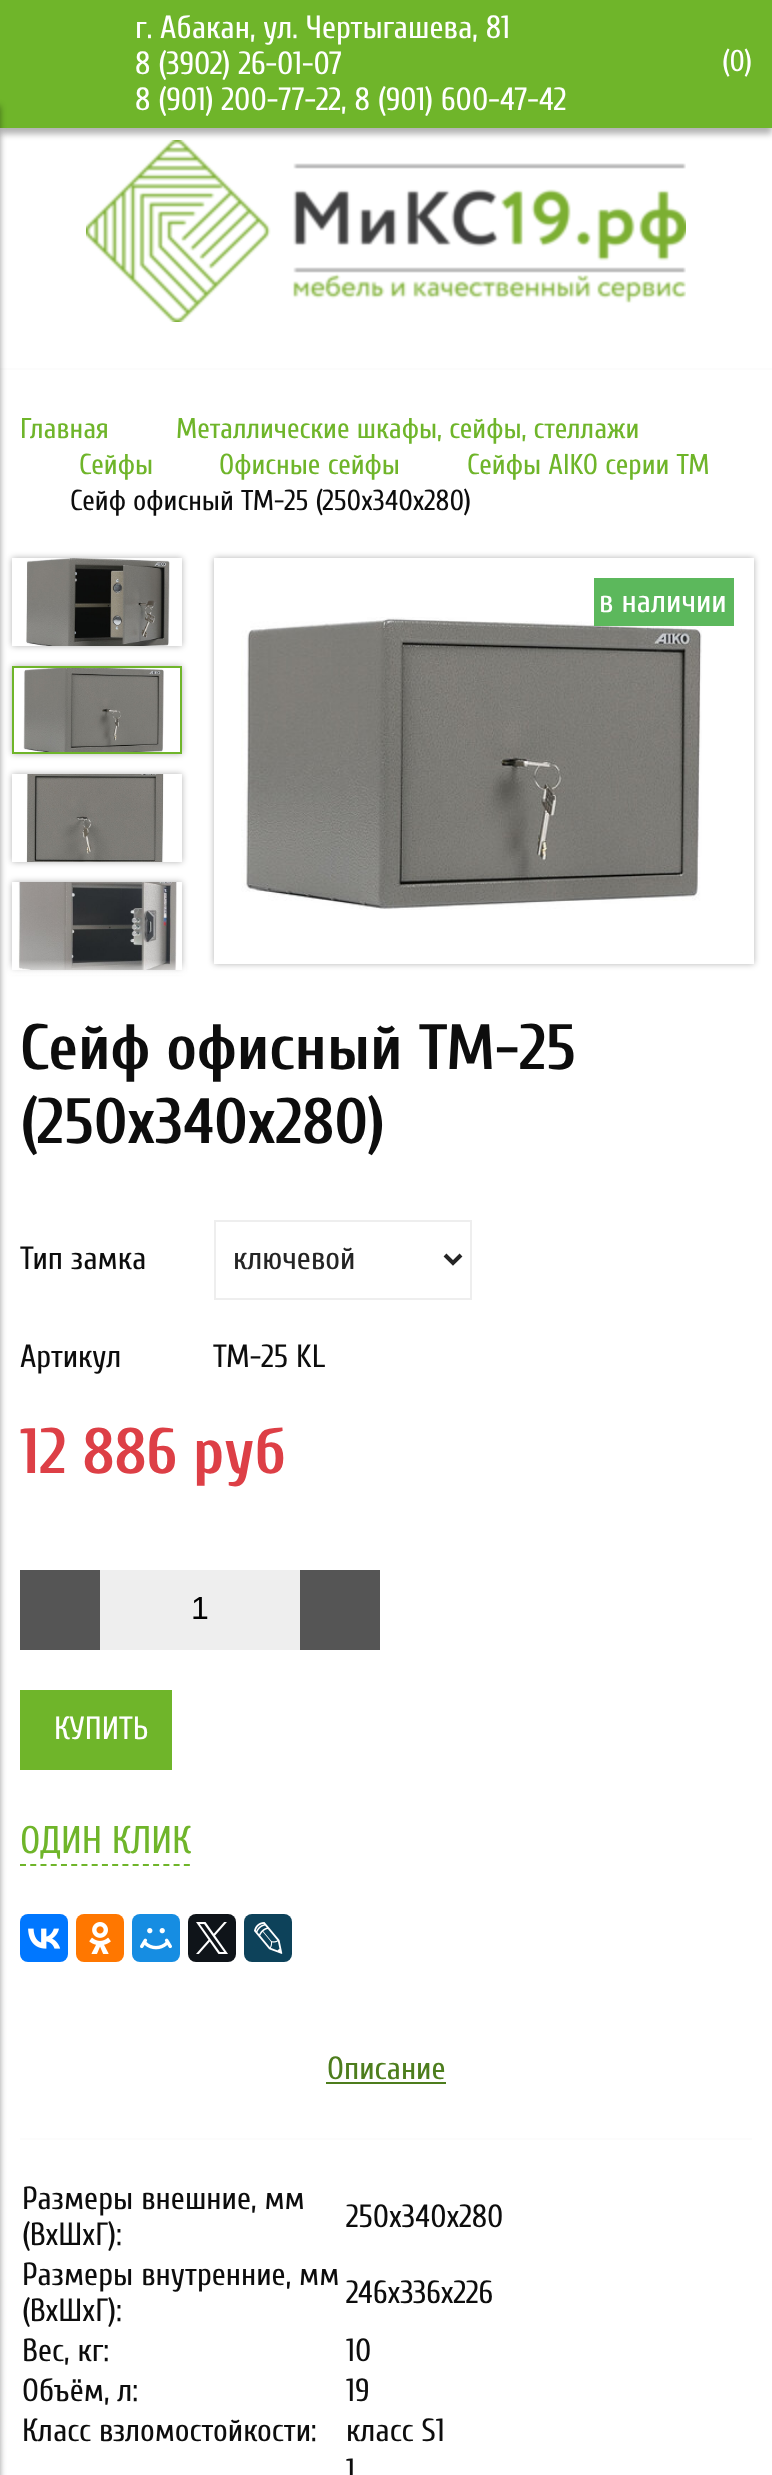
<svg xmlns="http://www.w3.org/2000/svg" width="772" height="2475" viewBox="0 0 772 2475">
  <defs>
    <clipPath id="clip1"><path d="M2 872H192V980H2ZM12 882H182V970H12Z" clip-rule="evenodd"/></clipPath>
    <linearGradient id="g1" gradientUnits="userSpaceOnUse" x1="97" y1="958" x2="97" y2="978"><stop offset="0.1" stop-color="rgb(255,255,255)" stop-opacity="0"/><stop offset="1" stop-color="rgb(255,255,255)"/></linearGradient>
    <clipPath id="clip2"><path d="M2 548H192V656H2ZM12 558H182V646H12Z" clip-rule="evenodd"/></clipPath>
    <clipPath id="clip3"><path d="M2 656H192V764H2ZM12 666H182V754H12Z" clip-rule="evenodd"/></clipPath>
    <clipPath id="clip4"><path d="M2 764H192V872H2ZM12 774H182V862H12Z" clip-rule="evenodd"/></clipPath>
    <clipPath id="clip5"><path d="M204 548H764V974H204ZM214 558H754V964H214Z" clip-rule="evenodd"/></clipPath>
  </defs>
  <rect width="100%" height="100%" fill="rgb(255,255,255)"/>
  <image x="86" y="140" width="600" height="182" href="pic1.png"/>
  <rect x="0" y="6" width="772" height="128" fill="rgba(0,0,0,0.3)" filter="blur(3px)"/>
  <rect x="0" y="0" width="772" height="128" fill="rgb(111,181,42)"/>
  <g font-family="Cuprum" font-size="32" fill="rgb(255,255,255)">
    <text>
      <tspan x="135" y="38">г. Абакан, ул. Чертыгашева, 81</tspan>
      <tspan x="135" y="74">8 (3902) 26-01-07</tspan>
      <tspan x="135" y="110">8 (901) 200-77-22, 8 (901) 600-47-42</tspan>
    </text>
  </g>
  <text x="722" y="71" font-family="Cuprum" font-size="30" fill="rgb(255,255,255)">(0)</text>
  <rect x="0" y="368" width="772" height="2" fill="rgb(252,252,252)"/>
  <g clip-path="url(#clip1)">
    <rect x="12" y="882" width="170" height="88" fill="rgba(0,0,0,0.3)" filter="blur(3px)"/>
  </g>
  <image x="18" y="882" width="159" height="88" href="pic5.png"/>
  <rect x="8" y="960" width="178" height="15" fill="url(#g1)"/>
  <rect x="-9" y="106" width="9" height="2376" fill="rgba(0,0,0,0.4)" filter="blur(3px)"/>
  <g font-family="Cuprum" font-size="28.75" fill="rgb(111,181,42)">
    <text x="20" y="438">Главная</text>
    <text x="176" y="438">Металлические шкафы, сейфы, стеллажи</text>
    <text x="79" y="474">Сейфы</text>
    <text x="219" y="474">Офисные сейфы</text>
    <text x="467" y="474">Сейфы AIKO серии TM</text>
  </g>
  <text x="70" y="510" font-family="Cuprum" font-size="28.75" fill="rgb(13,13,13)">Сейф офисный TM-25 (250x340x280)</text>
  <g clip-path="url(#clip2)">
    <rect x="12" y="558" width="170" height="88" fill="rgba(0,0,0,0.3)" filter="blur(3px)"/>
  </g>
  <image x="26" y="558" width="144" height="88" href="pic2.png"/>
  <g clip-path="url(#clip3)">
    <rect x="12" y="666" width="170" height="88" fill="rgba(0,0,0,0.3)" filter="blur(3px)"/>
  </g>
  <rect x="13" y="667" width="168" height="86" fill="none" stroke="rgb(111,181,42)" stroke-width="2"/>
  <image x="23" y="668" width="141" height="84" href="pic3.png"/>
  <g clip-path="url(#clip4)">
    <rect x="12" y="774" width="170" height="88" fill="rgba(0,0,0,0.3)" filter="blur(3px)"/>
  </g>
  <image x="26" y="774" width="138" height="88" href="pic4.png"/>
  <g clip-path="url(#clip5)">
    <rect x="214" y="558" width="540" height="406" fill="rgba(0,0,0,0.3)" filter="blur(3px)"/>
  </g>
  <image x="241" y="617" width="461" height="293" href="pic6.png"/>
  <rect x="594" y="578" width="140" height="48" fill="rgb(92,184,92)"/>
  <text x="599" y="612" font-family="Cuprum" font-size="32" fill="rgb(255,255,255)">в наличии</text>
  <g font-family="Cuprum" font-size="64" font-weight="bold" fill="rgb(13,13,13)">
    <text>
      <tspan x="20" y="1069">Сейф офисный TM-25</tspan>
      <tspan x="20" y="1143">(250x340x280)</tspan>
    </text>
  </g>
  <text x="20" y="1269" font-family="Cuprum" font-size="32" fill="rgb(13,13,13)">Тип замка</text>
  <rect x="215" y="1221" width="256" height="78" fill="none" stroke="rgb(238,238,238)" stroke-width="2"/>
  <path d="M445 1255L453 1263L461 1255" fill="none" stroke="rgb(37,37,37)" stroke-width="4"/>
  <text x="233" y="1269" font-family="Cuprum" font-size="32" fill="rgb(37,37,37)">ключевой</text>
  <g font-family="Cuprum" font-size="32" fill="rgb(13,13,13)">
    <text x="20" y="1367">Артикул</text>
    <text x="213" y="1367">TM-25 KL</text>
  </g>
  <text x="20" y="1473" font-family="Cuprum" font-size="64" font-weight="bold" fill="rgb(221,63,70)">12 886 руб</text>
  <rect x="20" y="1570" width="80" height="80" fill="rgb(85,85,85)"/>
  <rect x="100" y="1570" width="200" height="80" fill="rgb(238,238,238)"/>
  <text x="191" y="1619" font-family="Liberation Sans" font-size="32" fill="rgb(0,0,0)">1</text>
  <rect x="300" y="1570" width="80" height="80" fill="rgb(85,85,85)"/>
  <rect x="20" y="1690" width="152" height="80" fill="rgb(111,181,42)"/>
  <text x="54" y="1739" font-family="Cuprum" font-size="32" fill="rgb(255,255,255)">КУПИТЬ</text>
  <text x="20" y="1853" font-family="Cuprum" font-size="38.5" fill="rgb(111,181,42)">ОДИН КЛИК</text>
  <path d="M20 1865H190" fill="none" stroke="rgb(111,181,42)" stroke-width="2" stroke-dasharray="6 4.24"/>
  <rect x="20" y="1914" width="48" height="48" rx="8" fill="rgb(0,119,255)"/>
  <image x="28" y="1928" width="33" height="21" href="pic7.png"/>
  <rect x="76" y="1914" width="48" height="48" rx="8" fill="rgb(255,119,0)"/>
  <image x="89" y="1922" width="22" height="32" href="pic8.png"/>
  <rect x="132" y="1914" width="48" height="48" rx="8" fill="rgb(22,141,226)"/>
  <image x="140" y="1928" width="32" height="22" href="pic9.png"/>
  <rect x="188" y="1914" width="48" height="48" rx="8" fill="rgb(15,20,25)"/>
  <image x="196" y="1922" width="32" height="32" href="pic10.png"/>
  <rect x="244" y="1914" width="48" height="48" rx="8" fill="rgb(13,66,90)"/>
  <image x="254" y="1922" width="29" height="32" href="pic11.png"/>
  <rect x="20" y="2138" width="732" height="2" fill="rgb(252,252,252)"/>
  <text x="327" y="2079" font-family="Cuprum" font-size="32" fill="rgb(77,125,29)">Описание</text>
  <rect x="326" y="2082" width="120" height="2" fill="rgb(77,125,29)"/>
  <g font-family="Cuprum" font-size="32" fill="rgb(13,13,13)">
    <text>
      <tspan x="22" y="2209">Размеры внешние, мм</tspan>
      <tspan x="22" y="2245">(ВхШхГ):</tspan>
    </text>
    <text x="346" y="2227">250x340x280</text>
    <text>
      <tspan x="22" y="2285">Размеры внутренние, мм</tspan>
      <tspan x="22" y="2321">(ВхШхГ):</tspan>
    </text>
    <text x="346" y="2303">246x336x226</text>
    <text x="22" y="2361">Вес, кг:</text>
    <text x="346" y="2361">10</text>
    <text x="22" y="2401">Объём, л:</text>
    <text x="346" y="2401">19</text>
    <text x="22" y="2441">Класс взломостойкости:</text>
    <text>
      <tspan x="346" y="2441">класс S1</tspan>
      <tspan x="346" y="2481">1</tspan>
    </text>
  </g>
</svg>
